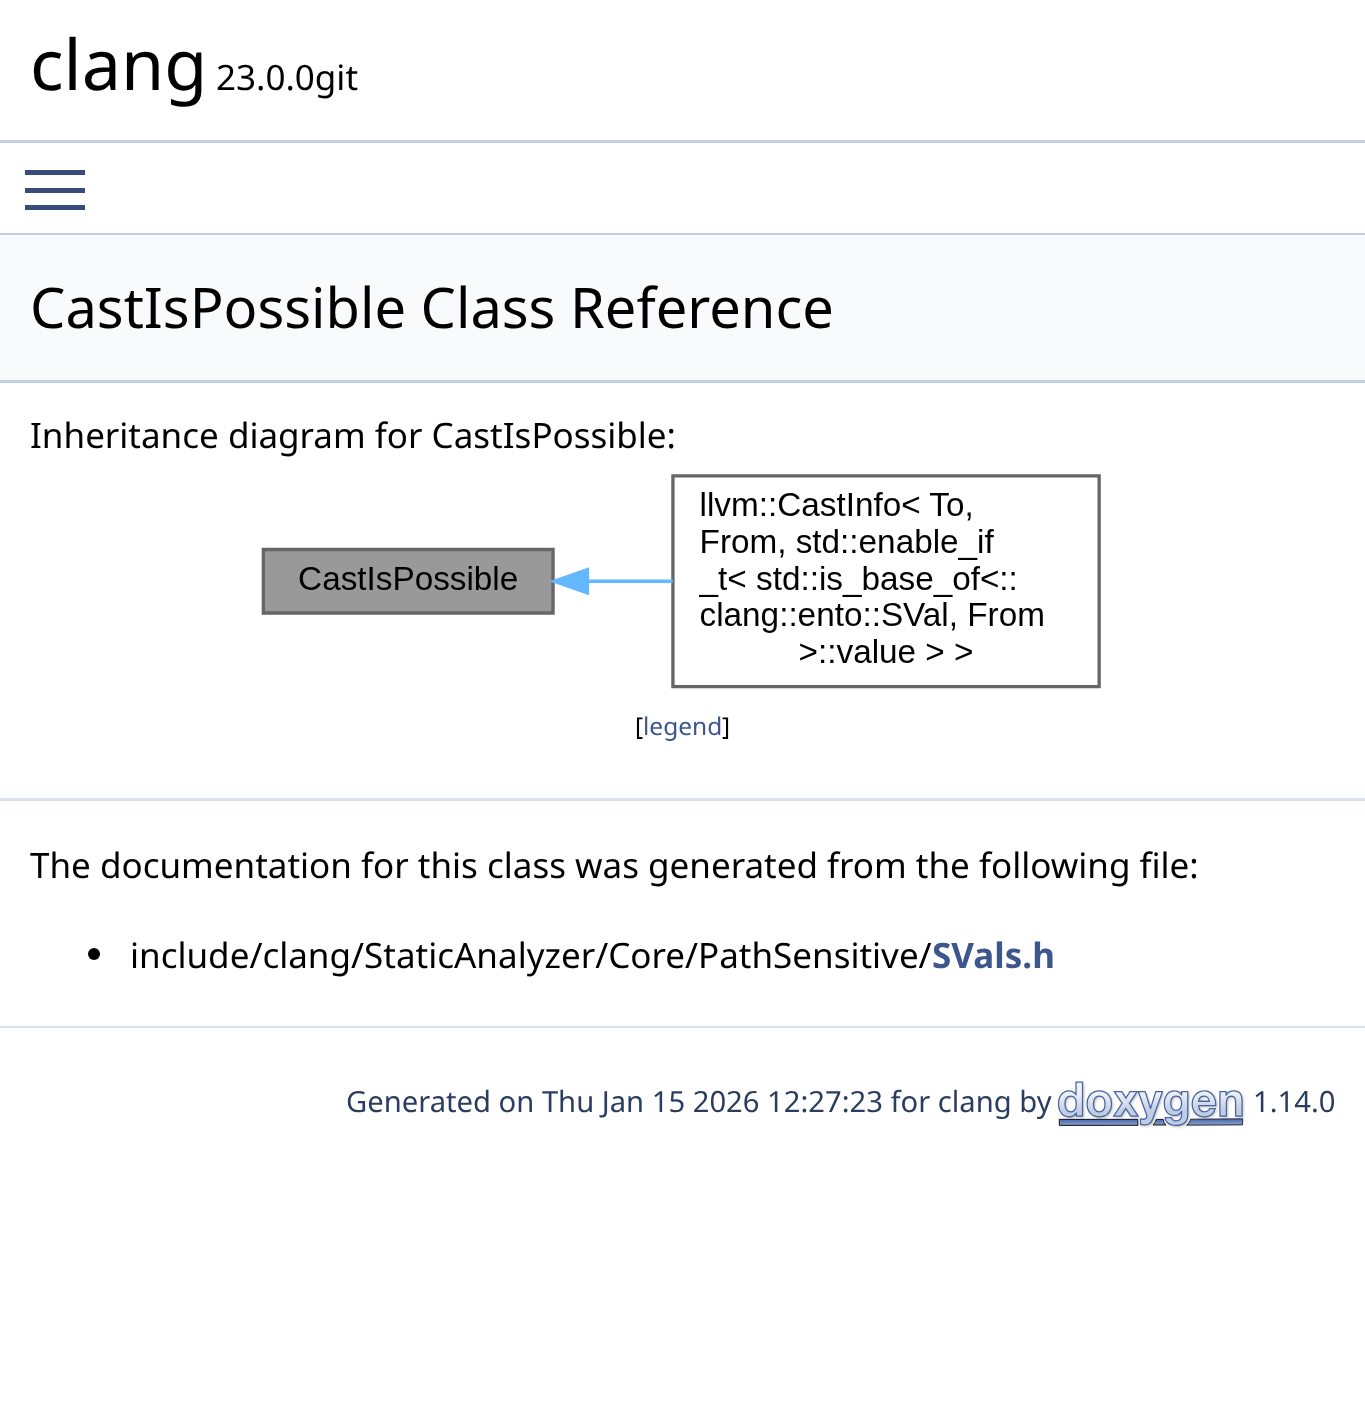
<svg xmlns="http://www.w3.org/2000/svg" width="1365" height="1403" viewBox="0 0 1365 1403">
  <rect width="100%" height="100%" fill="rgb(255,255,255)"/>
  <rect x="0" y="140" width="1365" height="3" fill="rgb(196,207,229)"/>
  <text x="30" y="90" font-family="Noto Sans" font-size="70" fill="rgb(0,0,0)">clang</text>
  <text x="216" y="90" font-family="Noto Sans" font-size="35" fill="rgb(0,0,0)">23.0.0git</text>
  <rect x="25" y="188" width="60" height="5" fill="rgb(54,77,124)"/>
  <rect x="25" y="170" width="60" height="5" fill="rgb(54,77,124)"/>
  <rect x="25" y="205" width="60" height="5" fill="rgb(54,77,124)"/>
  <rect x="0" y="233" width="1365" height="2" fill="rgb(196,207,229)"/>
  <rect x="0" y="235" width="1365" height="145" fill="rgb(249,250,252)"/>
  <rect x="0" y="380" width="1365" height="3" fill="rgb(196,207,229)"/>
  <text x="30" y="328" font-family="Noto Sans" font-size="56" fill="rgb(0,0,0)">CastIsPossible Class Reference</text>
  <text x="30" y="448" font-family="Noto Sans" font-size="35" fill="rgb(0,0,0)">Inheritance diagram for CastIsPossible:</text>
  <image x="261" y="474" width="840" height="215" href="pic1.png"/>
  <text x="635" y="735" font-family="Noto Sans" font-size="24.5" fill="rgb(0,0,0)">[</text>
  <text x="643" y="735" font-family="Noto Sans" font-size="24.5" fill="rgb(61,87,140)">legend</text>
  <text x="722" y="735" font-family="Noto Sans" font-size="24.5" fill="rgb(0,0,0)">]</text>
  <rect x="0" y="798" width="1365" height="3" fill="rgb(217,224,238)"/>
  <text x="30" y="878" font-family="Noto Sans" font-size="35" fill="rgb(0,0,0)">The documentation for this class was generated from the following file:</text>
  <circle cx="94" cy="954" r="6" fill="rgb(0,0,0)"/>
  <text x="130" y="968" font-family="Noto Sans" font-size="35" fill="rgb(0,0,0)">include/clang/StaticAnalyzer/Core/PathSensitive/</text>
  <text x="932" y="968" font-family="Noto Sans" font-size="35" font-weight="bold" fill="rgb(61,87,140)">SVals.h</text>
  <rect x="0" y="1026" width="1365" height="2" fill="rgb(217,224,238)"/>
  <text x="346" y="1112" font-family="Noto Sans" font-size="29.2" fill="rgb(42,61,97)">Generated on Thu Jan 15 2026 12:27:23 for clang by</text>
  <image x="1058" y="1081" width="187" height="48" href="pic2.png"/>
  <text x="1253" y="1112" font-family="Noto Sans" font-size="29.2" fill="rgb(42,61,97)">1.14.0</text>
</svg>
